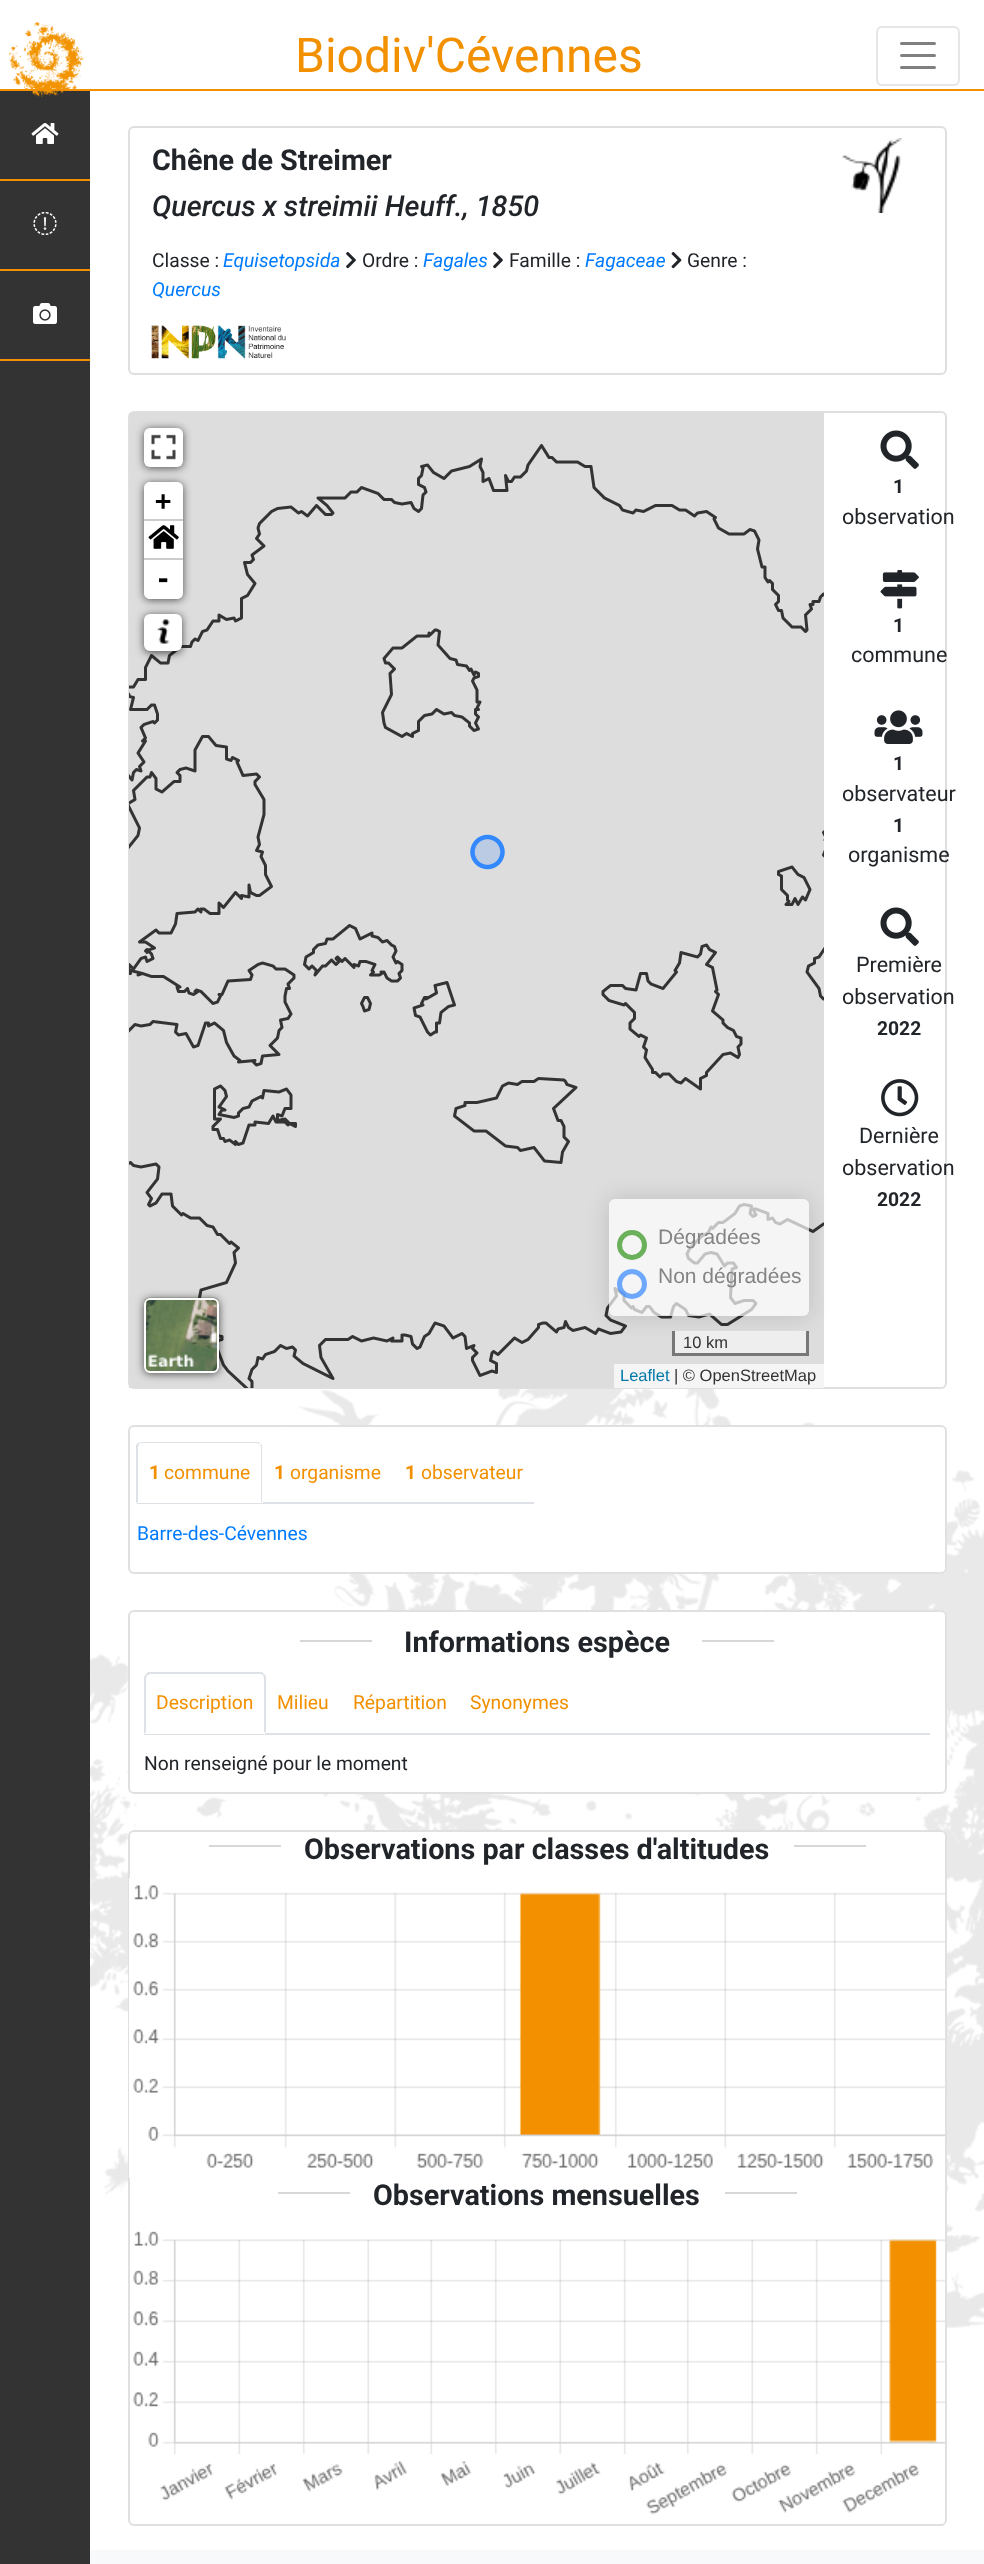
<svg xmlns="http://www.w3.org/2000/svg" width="984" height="2564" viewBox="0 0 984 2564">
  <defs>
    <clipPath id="clip1"><path d="M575 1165H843V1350H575ZM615 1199H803C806.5 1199 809 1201.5 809 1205V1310C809 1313.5 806.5 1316 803 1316H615C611.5 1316 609 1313.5 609 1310V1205C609 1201.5 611.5 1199 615 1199Z" clip-rule="evenodd"/></clipPath>
  </defs>
  <rect width="100%" height="100%" fill="rgb(255,255,255)"/>
  <image x="90" y="1389" width="894" height="939" href="pic1.png"/>
  <rect x="0" y="89" width="984" height="2" fill="rgb(242,144,0)"/>
  <rect x="0" y="91" width="90" height="2473" fill="rgb(51,51,51)"/>
  <image x="8" y="22" width="76" height="76" href="pic2.png"/>
  <text x="295" y="72" font-family="Roboto" font-size="48" fill="rgb(242,144,0)">Biodiv'Cévennes</text>
  <rect x="877" y="27" width="82" height="58" rx="5" fill="none" stroke="rgb(230,230,230)" stroke-width="2"/>
  <path d="M901.5 43.5H934.5M901.5 55.5H934.5M901.5 67.5H934.5" fill="none" stroke="rgb(128,128,128)" stroke-width="3" stroke-linecap="round"/>
  <rect x="0" y="179" width="90" height="2" fill="rgb(242,144,0)"/>
  <image x="31" y="123" width="28" height="21" href="pic3.png"/>
  <rect x="0" y="269" width="90" height="2" fill="rgb(242,144,0)"/>
  <image x="33" y="212" width="24" height="23" href="pic4.png"/>
  <rect x="0" y="359" width="90" height="2" fill="rgb(242,144,0)"/>
  <image x="33" y="303" width="24" height="21" href="pic5.png"/>
  <rect x="129" y="127" width="817" height="247" rx="5" fill="none" stroke="rgb(223,223,223)" stroke-width="2"/>
  <text x="152" y="170" font-family="Roboto" font-size="28.75" font-weight="bold" fill="rgb(33,37,41)">Chêne de Streimer</text>
  <text x="152" y="216" font-family="Roboto" font-size="28.75" font-weight="500" font-style="italic" fill="rgb(33,37,41)">Quercus x streimii Heuff., 1850</text>
  <text x="152" y="267" font-family="Roboto" font-size="19.25" fill="rgb(33,37,41)">Classe :</text>
  <text x="223" y="267" font-family="Roboto" font-size="19.25" font-style="italic" fill="rgb(0,123,255)">Equisetopsida</text>
  <image x="346" y="252" width="10" height="17" href="pic6.png"/>
  <text x="362" y="267" font-family="Roboto" font-size="19.25" fill="rgb(33,37,41)">Ordre :</text>
  <text x="423" y="267" font-family="Roboto" font-size="19.25" font-style="italic" fill="rgb(0,123,255)">Fagales</text>
  <image x="493" y="252" width="10" height="17" href="pic6.png"/>
  <text x="509" y="267" font-family="Roboto" font-size="19.25" fill="rgb(33,37,41)">Famille :</text>
  <text x="585" y="267" font-family="Roboto" font-size="19.25" font-style="italic" fill="rgb(0,123,255)">Fagaceae</text>
  <image x="671" y="252" width="11" height="17" href="pic7.png"/>
  <text x="687" y="267" font-family="Roboto" font-size="19.25" fill="rgb(33,37,41)">Genre :</text>
  <text x="152" y="296" font-family="Roboto" font-size="19.25" font-style="italic" fill="rgb(0,123,255)">Quercus</text>
  <image x="151" y="325" width="135" height="34" href="pic8.png"/>
  <image x="842" y="138" width="60" height="75" href="pic9.png"/>
  <rect x="129" y="412" width="817" height="976" rx="5" fill="none" stroke="rgb(223,223,223)" stroke-width="2"/>
  <rect x="129" y="413" width="695" height="975" fill="rgb(221,221,221)"/>
  <image x="129" y="444" width="695" height="944" href="pic10.png"/>
  <rect x="144" y="429" width="39" height="39" rx="6" fill="rgba(0,0,0,0.65)" filter="blur(4px)"/>
  <rect x="144" y="428" width="39" height="39" rx="6" fill="rgb(255,255,255)"/>
  <image x="151" y="434" width="25" height="26" href="pic11.png"/>
  <rect x="144" y="483" width="39" height="117" rx="6" fill="rgba(0,0,0,0.65)" filter="blur(4px)"/>
  <path d="M150 482H177C180.5 482 183 484.5 183 488V521H144V488C144 484.5 146.5 482 150 482Z" fill="rgb(255,255,255)"/>
  <rect x="144" y="519" width="39" height="2" fill="rgb(204,204,204)"/>
  <text x="155" y="510" font-family="DejaVu Sans Mono" font-size="27" font-weight="bold" fill="rgb(0,0,0)">+</text>
  <rect x="144" y="521" width="39" height="37" fill="rgb(255,255,255)"/>
  <rect x="144" y="558" width="39" height="2" fill="rgb(204,204,204)"/>
  <image x="148" y="525" width="31" height="24" href="pic12.png"/>
  <path d="M144 560H183V593C183 596.5 180.5 599 177 599H150C146.5 599 144 596.5 144 593Z" fill="rgb(255,255,255)"/>
  <text x="155" y="588" font-family="DejaVu Sans Mono" font-size="27" font-weight="bold" fill="rgb(0,0,0)">-</text>
  <rect x="144" y="615" width="38" height="38" rx="6" fill="rgba(0,0,0,0.65)" filter="blur(4px)"/>
  <rect x="145" y="615" width="36" height="35" rx="5" fill="rgb(255,255,255)" stroke="rgb(255,255,255)" stroke-width="2"/>
  <image x="157" y="619" width="13" height="25" href="pic13.png"/>
  <rect x="144" y="1299" width="75" height="75" rx="6" fill="rgba(0,0,0,0.65)" filter="blur(4px)"/>
  <image x="144" y="1297" width="75" height="76" href="pic14.png"/>
  <rect x="145" y="1299" width="73" height="73" rx="5" fill="none" stroke="rgb(255,255,255)" stroke-width="2"/>
  <g clip-path="url(#clip1)">
    <rect x="609" y="1199" width="200" height="117" rx="6" fill="rgba(0,0,0,0.14)" filter="blur(11px)"/>
  </g>
  <rect x="609" y="1199" width="200" height="117" rx="6" fill="rgba(255,255,255,0.7)"/>
  <circle cx="632" cy="1245" r="12.5" fill="none" stroke="rgb(107,176,91)" stroke-width="5"/>
  <text x="658" y="1244" font-family="Liberation Sans" font-size="21" fill="rgb(132,132,132)">Dégradées</text>
  <circle cx="632" cy="1284" r="12.5" fill="none" stroke="rgba(51,136,255,0.7)" stroke-width="5"/>
  <text x="658" y="1283" font-family="Liberation Sans" font-size="21" fill="rgb(132,132,132)">Non dégradées</text>
  <rect x="675" y="1331" width="131" height="22" fill="rgb(238,238,238)"/>
  <rect x="806" y="1331" width="3" height="25" fill="rgb(119,119,119)"/>
  <rect x="672" y="1353" width="137" height="3" fill="rgb(119,119,119)"/>
  <rect x="672" y="1331" width="3" height="25" fill="rgb(119,119,119)"/>
  <text x="683" y="1348" font-family="Liberation Sans" font-size="16.5" fill="rgb(51,51,51)">10 km</text>
  <rect x="614" y="1364" width="210" height="24" fill="rgb(245,245,245)"/>
  <text x="620" y="1381" font-family="Liberation Sans" font-size="16.5" fill="rgb(0,120,168)">Leaflet</text>
  <text x="674" y="1381" font-family="Liberation Sans" font-size="16.5" fill="rgb(51,51,51)">| © OpenStreetMap</text>
  <image x="880" y="430" width="39" height="39" href="pic15.png"/>
  <text x="893" y="493" font-family="Roboto" font-size="19.25" font-weight="bold" fill="rgb(33,37,41)">1</text>
  <text x="842" y="524" font-family="Roboto" font-size="21.5" fill="rgb(33,37,41)">observation</text>
  <image x="880" y="570" width="39" height="39" href="pic16.png"/>
  <text x="893" y="632" font-family="Roboto" font-size="19.25" font-weight="bold" fill="rgb(33,37,41)">1</text>
  <text x="851" y="662" font-family="Roboto" font-size="21.5" fill="rgb(33,37,41)">commune</text>
  <image x="874" y="710" width="49" height="34" href="pic17.png"/>
  <text x="893" y="770" font-family="Roboto" font-size="19.25" font-weight="bold" fill="rgb(33,37,41)">1</text>
  <text x="842" y="801" font-family="Roboto" font-size="21.5" fill="rgb(33,37,41)">observateur</text>
  <text x="893" y="832" font-family="Roboto" font-size="19.25" font-weight="bold" fill="rgb(33,37,41)">1</text>
  <text x="848" y="862" font-family="Roboto" font-size="21.5" fill="rgb(33,37,41)">organisme</text>
  <image x="880" y="907" width="39" height="39" href="pic15.png"/>
  <g font-family="Roboto" font-size="21.5" fill="rgb(33,37,41)">
    <text x="856" y="972">Première</text>
    <text x="842" y="1004">observation</text>
  </g>
  <text x="877" y="1035" font-family="Roboto" font-size="19.25" font-weight="bold" fill="rgb(33,37,41)">2022</text>
  <image x="881" y="1079" width="38" height="38" href="pic18.png"/>
  <g font-family="Roboto" font-size="21.5" fill="rgb(33,37,41)">
    <text x="859" y="1143">Dernière</text>
    <text x="842" y="1175">observation</text>
  </g>
  <text x="877" y="1206" font-family="Roboto" font-size="19.25" font-weight="bold" fill="rgb(33,37,41)">2022</text>
  <rect x="128" y="1425" width="819" height="149" rx="6" fill="rgb(255,255,255)"/>
  <rect x="129" y="1426" width="817" height="147" rx="5" fill="none" stroke="rgba(0,0,0,0.12)" stroke-width="2"/>
  <rect x="137" y="1502" width="397" height="2" fill="rgb(222,226,230)"/>
  <path d="M143 1442H257C260.5 1442 263 1444.5 263 1448V1503H137V1448C137 1444.5 139.5 1442 143 1442Z" fill="rgb(255,255,255)"/>
  <path d="M142 1442L138 1443L139 1444C140 1443 141 1443 142 1443H256C258 1443 259 1444 260 1444C260 1442 258 1442 256 1442Z" fill="rgb(222,226,230)"/>
  <path d="M262 1502V1448C262 1446 262 1444 260 1444C260 1445 261 1446 261 1448V1502Z" fill="rgb(222,226,230)"/>
  <path d="M136 1503L138 1502V1448C138 1446 139 1445 139 1444L138 1443L136 1445Z" fill="rgb(222,226,230)"/>
  <text x="149" y="1479" font-family="Roboto" font-size="19.25" font-weight="bold" fill="rgb(242,144,0)">1</text>
  <text x="164" y="1479" font-family="Roboto" font-size="19.25" fill="rgb(242,144,0)">commune</text>
  <text x="274" y="1479" font-family="Roboto" font-size="19.25" font-weight="bold" fill="rgb(242,144,0)">1</text>
  <text x="290" y="1479" font-family="Roboto" font-size="19.25" fill="rgb(242,144,0)">organisme</text>
  <text x="405" y="1479" font-family="Roboto" font-size="19.25" font-weight="bold" fill="rgb(242,144,0)">1</text>
  <text x="421" y="1479" font-family="Roboto" font-size="19.25" fill="rgb(242,144,0)">observateur</text>
  <text x="137" y="1540" font-family="Roboto" font-size="19.25" fill="rgb(0,123,255)">Barre-des-Cévennes</text>
  <rect x="128" y="1610" width="819" height="184" rx="6" fill="rgb(255,255,255)"/>
  <rect x="129" y="1611" width="817" height="182" rx="5" fill="none" stroke="rgba(0,0,0,0.12)" stroke-width="2"/>
  <rect x="300" y="1640" width="72" height="2" fill="rgb(215,215,215)"/>
  <text x="404" y="1652" font-family="Roboto" font-size="28.75" font-weight="bold" fill="rgb(33,37,41)">Informations espèce</text>
  <rect x="702" y="1640" width="72" height="2" fill="rgb(215,215,215)"/>
  <rect x="144" y="1733" width="786" height="2" fill="rgb(222,226,230)"/>
  <path d="M150 1673H260C263.5 1673 266 1675.5 266 1679V1734H144V1679C144 1675.5 146.5 1673 150 1673Z" fill="rgb(255,255,255)"/>
  <path d="M150 1674C149 1674 148 1675 147 1676L146 1674L148 1672H262L264 1674L263 1675L260 1674Z" fill="rgb(222,226,230)"/>
  <path d="M266 1676V1734L264 1732V1678L263 1675L264 1674Z" fill="rgb(222,226,230)"/>
  <path d="M266 1734L264 1732H146L144 1734Z" fill="rgb(255,255,255)"/>
  <path d="M144 1734L146 1732V1678L147 1676L146 1674C145 1675 144 1677 144 1678Z" fill="rgb(222,226,230)"/>
  <g font-family="Roboto" font-size="19.25" fill="rgb(242,144,0)">
    <text x="156" y="1709">Description</text>
    <text x="277" y="1709">Milieu</text>
    <text x="353" y="1709">Répartition</text>
    <text x="470" y="1709">Synonymes</text>
  </g>
  <text x="144" y="1770" font-family="Roboto" font-size="19.25" fill="rgb(33,37,41)">Non renseigné pour le moment</text>
  <rect x="128" y="1830" width="819" height="696" rx="6" fill="rgb(255,255,255)"/>
  <rect x="129" y="1831" width="817" height="694" rx="5" fill="none" stroke="rgba(0,0,0,0.12)" stroke-width="2"/>
  <rect x="209" y="1845" width="72" height="2" fill="rgb(215,215,215)"/>
  <text x="304" y="1859" font-family="Roboto" font-size="28.75" font-weight="bold" fill="rgb(33,37,41)">Observations par classes d'altitudes</text>
  <rect x="794" y="1845" width="72" height="2" fill="rgb(215,215,215)"/>
  <rect x="129" y="1878" width="1" height="300" fill="rgb(255,255,255)"/>
  <image x="133" y="1885" width="812" height="283" href="pic19.png"/>
  <rect x="278" y="2192" width="72" height="2" fill="rgb(215,215,215)"/>
  <text x="373" y="2205" font-family="Roboto" font-size="28.75" font-weight="bold" fill="rgb(33,37,41)">Observations mensuelles</text>
  <rect x="725" y="2192" width="72" height="2" fill="rgb(215,215,215)"/>
  <image x="133" y="2231" width="812" height="284" href="pic20.png"/>
  <rect x="90" y="2550" width="894" height="14" fill="rgb(248,249,250)"/>
</svg>
